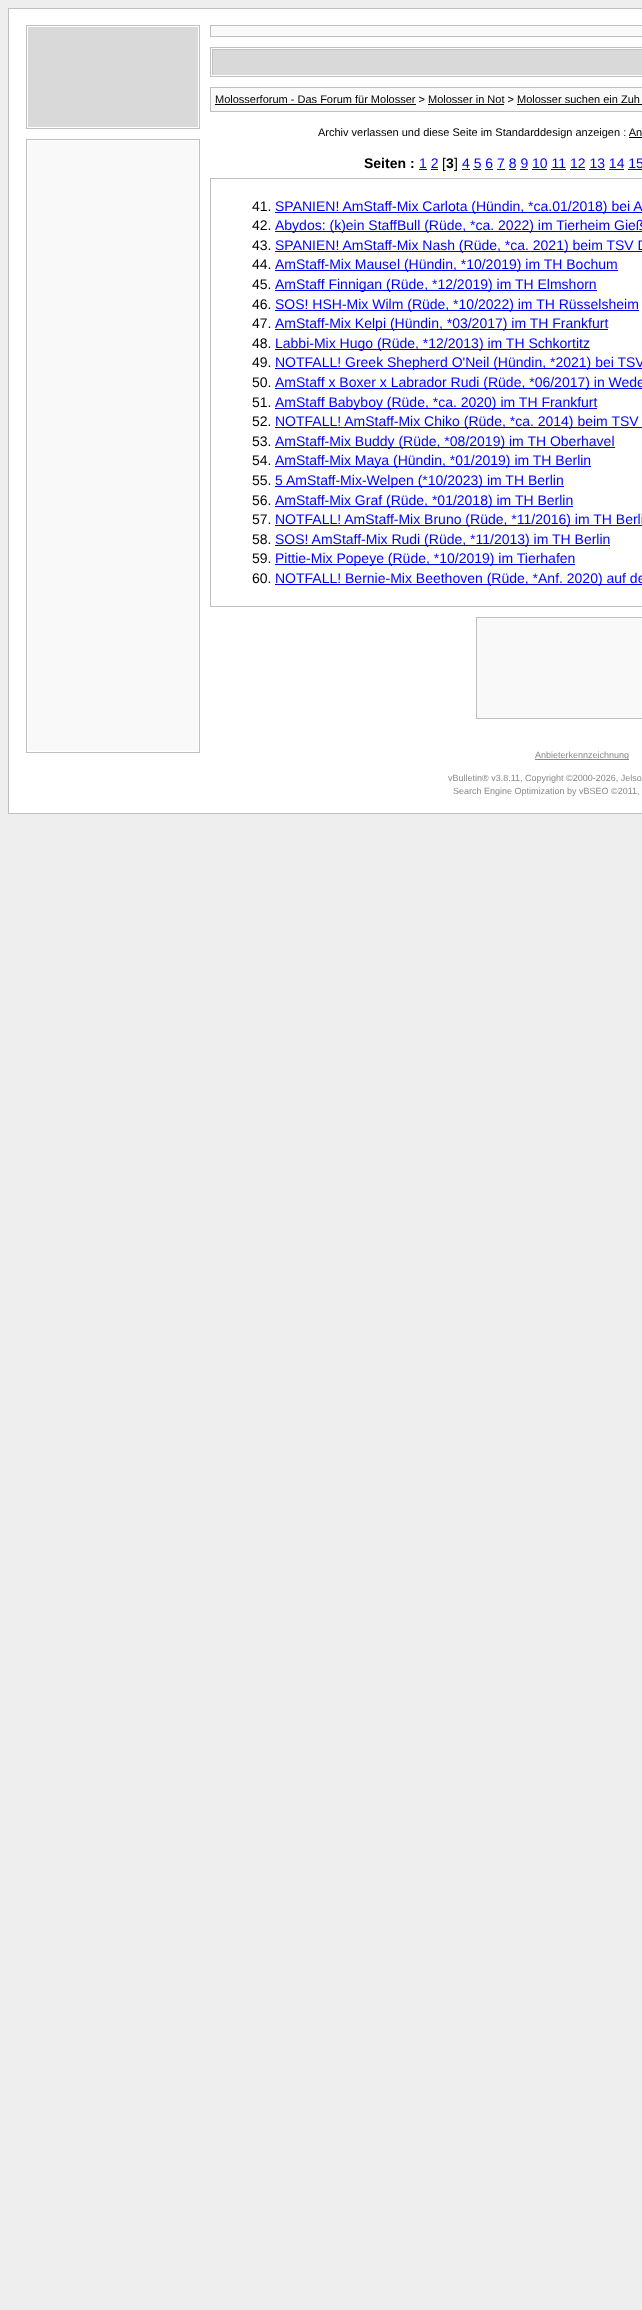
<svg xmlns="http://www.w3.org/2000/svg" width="642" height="2310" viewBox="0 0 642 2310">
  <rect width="100%" height="100%" fill="rgb(238,238,238)"/>
  <rect x="8.5" y="8.5" width="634" height="805" fill="rgb(255,255,255)" stroke="rgb(192,192,192)"/>
  <rect x="26.5" y="25.5" width="173" height="103" fill="none" stroke="rgb(192,192,192)"/>
  <rect x="28" y="27" width="170" height="100" fill="rgb(217,217,217)"/>
  <rect x="26.5" y="139.5" width="173" height="613" fill="none" stroke="rgb(192,192,192)"/>
  <rect x="28" y="141" width="170" height="610" fill="rgb(249,249,249)"/>
  <rect x="210.5" y="25.5" width="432" height="11" fill="rgb(249,249,249)" stroke="rgb(192,192,192)"/>
  <rect x="210.5" y="47.5" width="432" height="29" fill="none" stroke="rgb(192,192,192)"/>
  <rect x="213" y="50" width="429" height="25" fill="rgb(217,217,217)"/>
  <rect x="212" y="49" width="430" height="1" fill="rgb(192,192,192)"/>
  <rect x="212" y="49" width="1" height="26" fill="rgb(192,192,192)"/>
  <rect x="210.5" y="87.5" width="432" height="24" fill="rgb(249,249,249)" stroke="rgb(192,192,192)"/>
  <text x="215" y="103" font-family="Liberation Sans" font-size="11" fill="rgb(0,0,0)">Molosserforum - Das Forum für Molosser &gt; Molosser in Not &gt; Molosser suchen ein Zuh</text>
  <rect x="215" y="104" width="201" height="1" fill="rgb(0,0,0)"/>
  <rect x="428" y="104" width="76" height="1" fill="rgb(0,0,0)"/>
  <rect x="517" y="104" width="125" height="1" fill="rgb(0,0,0)"/>
  <text x="318" y="136" font-family="Liberation Sans" font-size="11" fill="rgb(0,0,0)">Archiv verlassen und diese Seite im Standarddesign anzeigen : An</text>
  <rect x="629" y="137" width="13" height="1" fill="rgb(0,0,0)"/>
  <text x="364" y="168" font-family="Liberation Sans" font-size="14" font-weight="bold" fill="rgb(0,0,0)">Seiten :</text>
  <text x="419" y="168" font-family="Liberation Sans" font-size="14" fill="rgb(0,0,255)">1 2</text>
  <rect x="419" y="169" width="8" height="1" fill="rgb(0,0,255)"/>
  <text x="442" y="168" font-family="Liberation Sans" font-size="14" fill="rgb(0,0,0)">[</text>
  <text x="446" y="168" font-family="Liberation Sans" font-size="14" font-weight="bold" fill="rgb(0,0,0)">3</text>
  <text x="454" y="168" font-family="Liberation Sans" font-size="14" fill="rgb(0,0,0)">]</text>
  <text x="462" y="168" font-family="Liberation Sans" font-size="14" fill="rgb(0,0,255)">4 5 6 7 8 9 10 11 12 13 14 15</text>
  <rect x="462" y="169" width="8" height="1" fill="rgb(0,0,255)"/>
  <rect x="431" y="169" width="7" height="1" fill="rgb(0,0,255)"/>
  <rect x="473" y="169" width="8" height="1" fill="rgb(0,0,255)"/>
  <rect x="485" y="169" width="8" height="1" fill="rgb(0,0,255)"/>
  <rect x="497" y="169" width="8" height="1" fill="rgb(0,0,255)"/>
  <rect x="509" y="169" width="7" height="1" fill="rgb(0,0,255)"/>
  <rect x="520" y="169" width="8" height="1" fill="rgb(0,0,255)"/>
  <rect x="532" y="169" width="15" height="1" fill="rgb(0,0,255)"/>
  <rect x="551" y="169" width="15" height="1" fill="rgb(0,0,255)"/>
  <rect x="570" y="169" width="15" height="1" fill="rgb(0,0,255)"/>
  <rect x="589" y="169" width="16" height="1" fill="rgb(0,0,255)"/>
  <rect x="609" y="169" width="15" height="1" fill="rgb(0,0,255)"/>
  <rect x="628" y="169" width="14" height="1" fill="rgb(0,0,255)"/>
  <rect x="210.5" y="178.5" width="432" height="428" fill="none" stroke="rgb(192,192,192)"/>
  <text x="252" y="211" font-family="Liberation Sans" font-size="14" fill="rgb(0,0,0)">41.</text>
  <rect x="275" y="212" width="367" height="1" fill="rgb(0,0,255)"/>
  <text x="275" y="211" font-family="Liberation Sans" font-size="14" fill="rgb(0,0,255)">SPANIEN! AmStaff-Mix Carlota (Hündin, *ca.01/2018) bei A</text>
  <text x="252" y="230" font-family="Liberation Sans" font-size="14" fill="rgb(0,0,0)">42.</text>
  <rect x="275" y="231" width="367" height="1" fill="rgb(0,0,255)"/>
  <text x="275" y="230" font-family="Liberation Sans" font-size="14" fill="rgb(0,0,255)">Abydos: (k)ein StaffBull (Rüde, *ca. 2022) im Tierheim Gieß</text>
  <text x="252" y="250" font-family="Liberation Sans" font-size="14" fill="rgb(0,0,0)">43.</text>
  <rect x="275" y="251" width="367" height="1" fill="rgb(0,0,255)"/>
  <text x="275" y="250" font-family="Liberation Sans" font-size="14" fill="rgb(0,0,255)">SPANIEN! AmStaff-Mix Nash (Rüde, *ca. 2021) beim TSV D</text>
  <text x="252" y="269" font-family="Liberation Sans" font-size="14" fill="rgb(0,0,0)">44.</text>
  <rect x="275" y="270" width="343" height="1" fill="rgb(0,0,255)"/>
  <text x="275" y="269" font-family="Liberation Sans" font-size="14" fill="rgb(0,0,255)">AmStaff-Mix Mausel (Hündin, *10/2019) im TH Bochum</text>
  <text x="252" y="289" font-family="Liberation Sans" font-size="14" fill="rgb(0,0,0)">45.</text>
  <rect x="275" y="290" width="322" height="1" fill="rgb(0,0,255)"/>
  <text x="275" y="289" font-family="Liberation Sans" font-size="14" fill="rgb(0,0,255)">AmStaff Finnigan (Rüde, *12/2019) im TH Elmshorn</text>
  <text x="252" y="309" font-family="Liberation Sans" font-size="14" fill="rgb(0,0,0)">46.</text>
  <rect x="275" y="310" width="364" height="1" fill="rgb(0,0,255)"/>
  <text x="275" y="309" font-family="Liberation Sans" font-size="14" fill="rgb(0,0,255)">SOS! HSH-Mix Wilm (Rüde, *10/2022) im TH Rüsselsheim</text>
  <text x="252" y="328" font-family="Liberation Sans" font-size="14" fill="rgb(0,0,0)">47.</text>
  <rect x="275" y="329" width="333" height="1" fill="rgb(0,0,255)"/>
  <text x="275" y="328" font-family="Liberation Sans" font-size="14" fill="rgb(0,0,255)">AmStaff-Mix Kelpi (Hündin, *03/2017) im TH Frankfurt</text>
  <text x="252" y="348" font-family="Liberation Sans" font-size="14" fill="rgb(0,0,0)">48.</text>
  <rect x="275" y="349" width="315" height="1" fill="rgb(0,0,255)"/>
  <text x="275" y="348" font-family="Liberation Sans" font-size="14" fill="rgb(0,0,255)">Labbi-Mix Hugo (Rüde, *12/2013) im TH Schkortitz</text>
  <text x="252" y="367" font-family="Liberation Sans" font-size="14" fill="rgb(0,0,0)">49.</text>
  <rect x="275" y="368" width="367" height="1" fill="rgb(0,0,255)"/>
  <text x="275" y="367" font-family="Liberation Sans" font-size="14" fill="rgb(0,0,255)">NOTFALL! Greek Shepherd O'Neil (Hündin, *2021) bei TSV</text>
  <text x="252" y="387" font-family="Liberation Sans" font-size="14" fill="rgb(0,0,0)">50.</text>
  <rect x="275" y="388" width="367" height="1" fill="rgb(0,0,255)"/>
  <text x="275" y="387" font-family="Liberation Sans" font-size="14" fill="rgb(0,0,255)">AmStaff x Boxer x Labrador Rudi (Rüde, *06/2017) in Wede</text>
  <text x="252" y="407" font-family="Liberation Sans" font-size="14" fill="rgb(0,0,0)">51.</text>
  <rect x="275" y="408" width="322" height="1" fill="rgb(0,0,255)"/>
  <text x="275" y="407" font-family="Liberation Sans" font-size="14" fill="rgb(0,0,255)">AmStaff Babyboy (Rüde, *ca. 2020) im TH Frankfurt</text>
  <text x="252" y="426" font-family="Liberation Sans" font-size="14" fill="rgb(0,0,0)">52.</text>
  <rect x="275" y="427" width="367" height="1" fill="rgb(0,0,255)"/>
  <text x="275" y="426" font-family="Liberation Sans" font-size="14" fill="rgb(0,0,255)">NOTFALL! AmStaff-Mix Chiko (Rüde, *ca. 2014) beim TSV</text>
  <text x="252" y="446" font-family="Liberation Sans" font-size="14" fill="rgb(0,0,0)">53.</text>
  <rect x="275" y="447" width="340" height="1" fill="rgb(0,0,255)"/>
  <text x="275" y="446" font-family="Liberation Sans" font-size="14" fill="rgb(0,0,255)">AmStaff-Mix Buddy (Rüde, *08/2019) im TH Oberhavel</text>
  <text x="252" y="465" font-family="Liberation Sans" font-size="14" fill="rgb(0,0,0)">54.</text>
  <rect x="275" y="466" width="316" height="1" fill="rgb(0,0,255)"/>
  <text x="275" y="465" font-family="Liberation Sans" font-size="14" fill="rgb(0,0,255)">AmStaff-Mix Maya (Hündin, *01/2019) im TH Berlin</text>
  <text x="252" y="485" font-family="Liberation Sans" font-size="14" fill="rgb(0,0,0)">55.</text>
  <rect x="275" y="486" width="289" height="1" fill="rgb(0,0,255)"/>
  <text x="275" y="485" font-family="Liberation Sans" font-size="14" fill="rgb(0,0,255)">5 AmStaff-Mix-Welpen (*10/2023) im TH Berlin</text>
  <text x="252" y="505" font-family="Liberation Sans" font-size="14" fill="rgb(0,0,0)">56.</text>
  <rect x="275" y="506" width="298" height="1" fill="rgb(0,0,255)"/>
  <text x="275" y="505" font-family="Liberation Sans" font-size="14" fill="rgb(0,0,255)">AmStaff-Mix Graf (Rüde, *01/2018) im TH Berlin</text>
  <text x="252" y="524" font-family="Liberation Sans" font-size="14" fill="rgb(0,0,0)">57.</text>
  <rect x="275" y="525" width="367" height="1" fill="rgb(0,0,255)"/>
  <text x="275" y="524" font-family="Liberation Sans" font-size="14" fill="rgb(0,0,255)">NOTFALL! AmStaff-Mix Bruno (Rüde, *11/2016) im TH Berli</text>
  <text x="252" y="544" font-family="Liberation Sans" font-size="14" fill="rgb(0,0,0)">58.</text>
  <rect x="275" y="545" width="335" height="1" fill="rgb(0,0,255)"/>
  <text x="275" y="544" font-family="Liberation Sans" font-size="14" fill="rgb(0,0,255)">SOS! AmStaff-Mix Rudi (Rüde, *11/2013) im TH Berlin</text>
  <text x="252" y="563" font-family="Liberation Sans" font-size="14" fill="rgb(0,0,0)">59.</text>
  <rect x="275" y="564" width="300" height="1" fill="rgb(0,0,255)"/>
  <text x="275" y="563" font-family="Liberation Sans" font-size="14" fill="rgb(0,0,255)">Pittie-Mix Popeye (Rüde, *10/2019) im Tierhafen</text>
  <text x="252" y="583" font-family="Liberation Sans" font-size="14" fill="rgb(0,0,0)">60.</text>
  <rect x="275" y="584" width="367" height="1" fill="rgb(0,0,255)"/>
  <text x="275" y="583" font-family="Liberation Sans" font-size="14" fill="rgb(0,0,255)">NOTFALL! Bernie-Mix Beethoven (Rüde, *Anf. 2020) auf de</text>
  <rect x="476.5" y="617.5" width="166" height="101" fill="rgb(249,249,249)" stroke="rgb(192,192,192)"/>
  <rect x="535" y="759" width="94" height="1" fill="rgb(137,137,137)"/>
  <g font-family="Liberation Sans" font-size="9" fill="rgb(137,137,137)">
    <text x="535" y="758">Anbieterkennzeichnung</text>
    <text x="448" y="781">vBulletin® v3.8.11, Copyright ©2000-2026, Jelso</text>
    <text x="453" y="794">Search Engine Optimization by vBSEO ©2011,</text>
  </g>
</svg>
